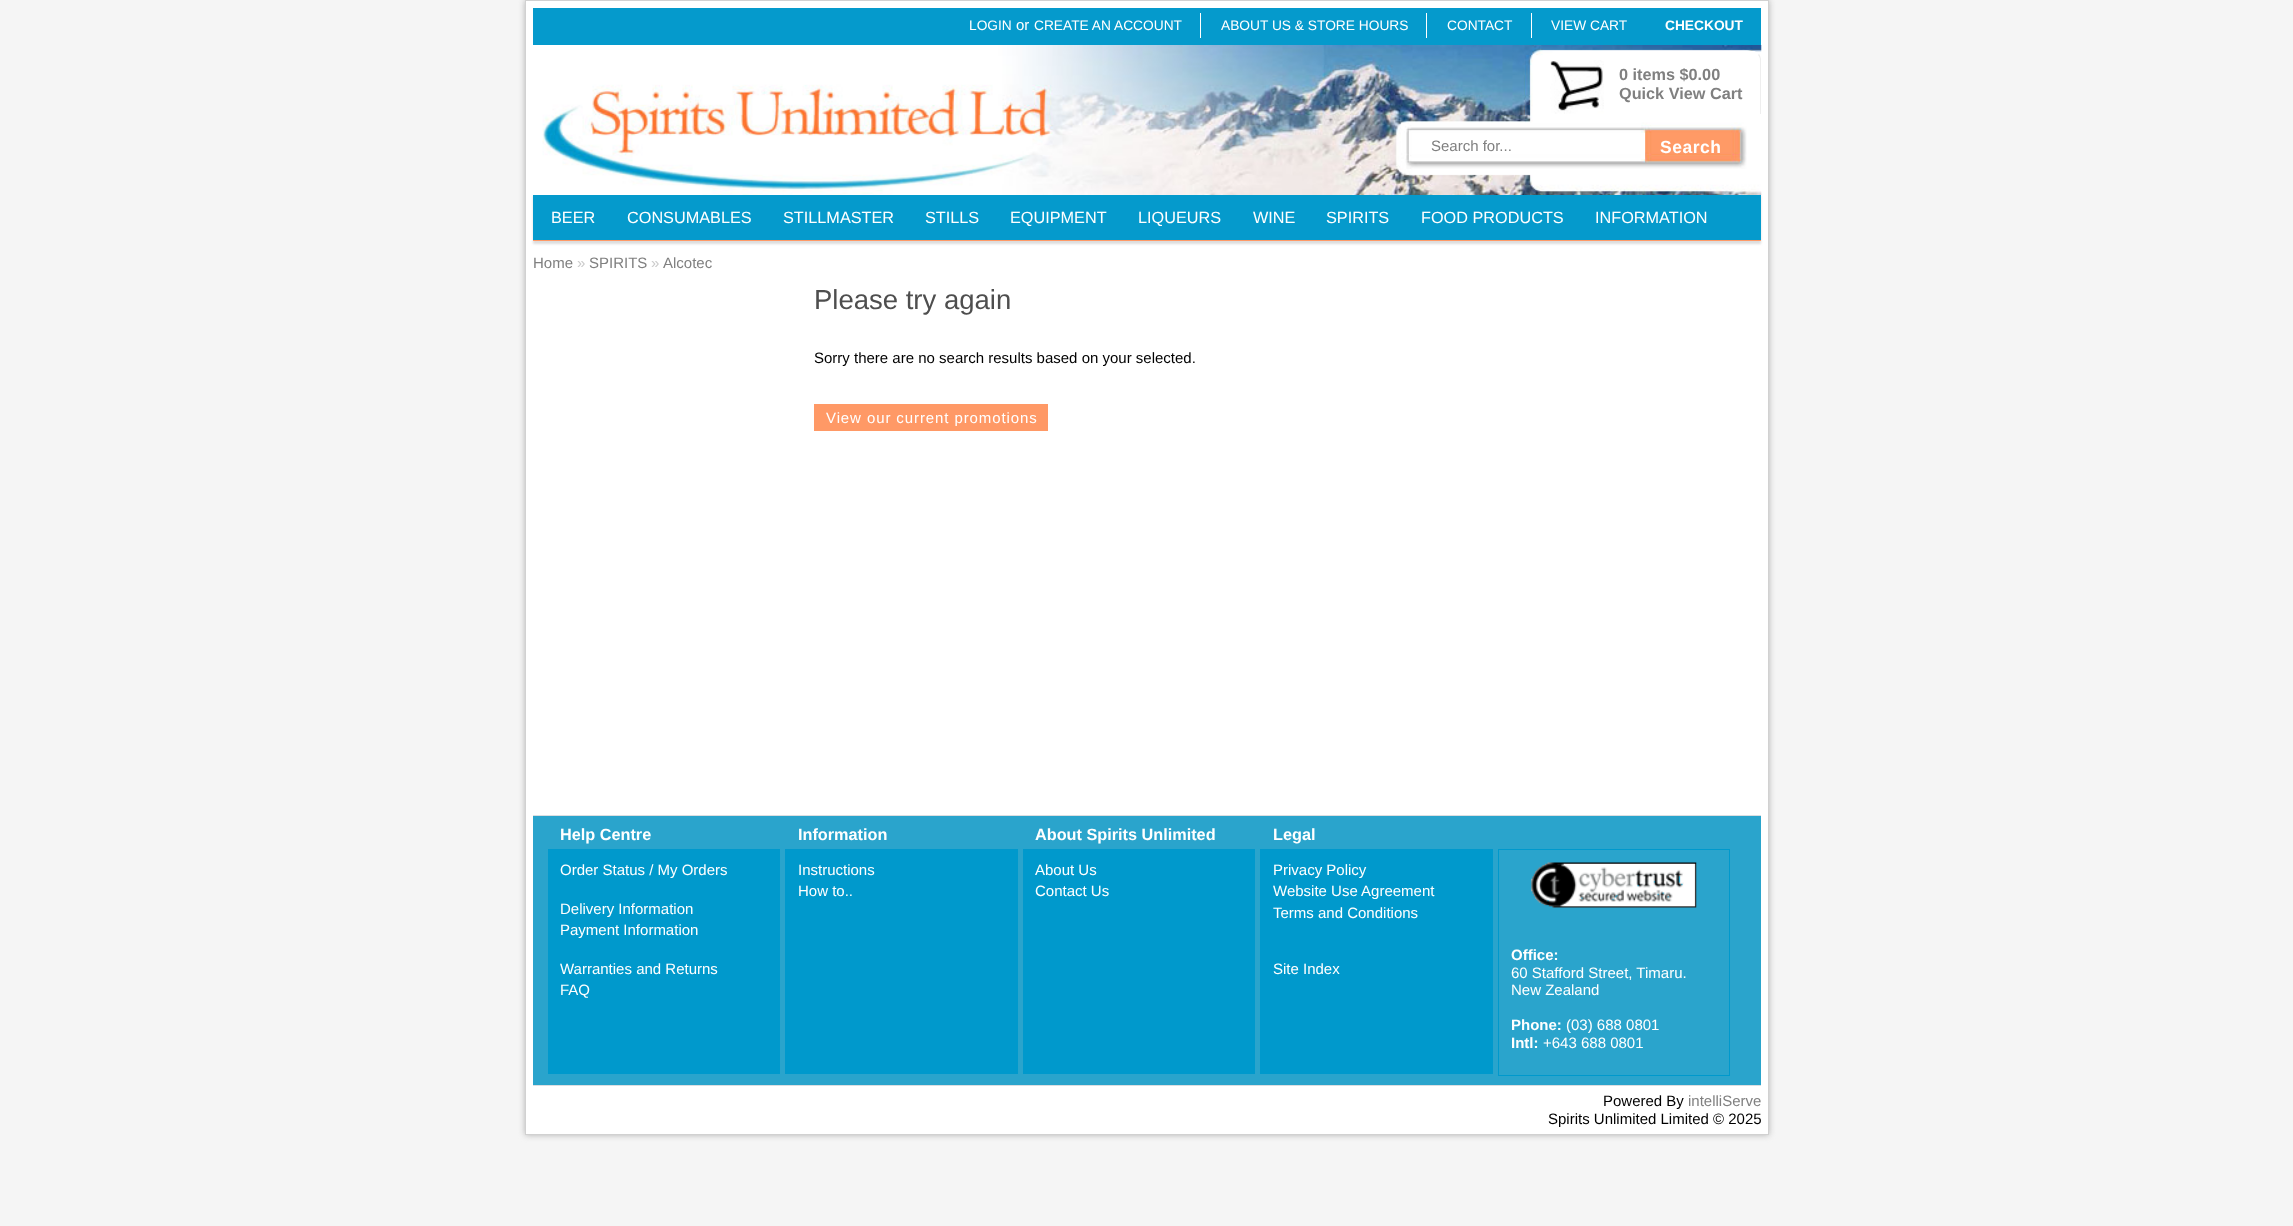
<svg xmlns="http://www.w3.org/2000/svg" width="2293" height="1226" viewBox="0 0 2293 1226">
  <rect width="100%" height="100%" fill="rgb(245,245,245)"/>
  <rect x="525" y="0" width="1244" height="1135" fill="rgb(178,178,178)" filter="blur(3px)"/>
  <rect x="525.5" y="0.5" width="1243" height="1134" fill="rgb(255,255,255)" stroke="rgb(209,209,209)"/>
  <rect x="533" y="8" width="1228" height="37" fill="rgb(5,154,204)"/>
  <rect x="1200" y="13" width="1" height="25" fill="rgb(255,255,255)"/>
  <text x="969" y="30" font-family="Liberation Sans" font-size="13.75" fill="rgb(255,255,255)">LOGIN</text>
  <text x="1016" y="30" font-family="Liberation Sans" font-size="15" fill="rgb(255,255,255)">or</text>
  <text x="1034" y="30" font-family="Liberation Sans" font-size="13.75" fill="rgb(255,255,255)">CREATE AN ACCOUNT</text>
  <rect x="1426" y="13" width="1" height="25" fill="rgb(255,255,255)"/>
  <text x="1221" y="30" font-family="Liberation Sans" font-size="13.75" fill="rgb(255,255,255)">ABOUT US &amp; STORE HOURS</text>
  <rect x="1531" y="13" width="1" height="25" fill="rgb(255,255,255)"/>
  <g font-family="Liberation Sans" font-size="13.75" fill="rgb(255,255,255)">
    <text x="1447" y="30">CONTACT</text>
    <text x="1551" y="30">VIEW CART</text>
  </g>
  <text x="1665" y="30" font-family="Liberation Sans" font-size="13.75" font-weight="bold" fill="rgb(255,255,255)">CHECKOUT</text>
  <rect x="533" y="196" width="1228" height="48" fill="rgb(221,221,221)" filter="blur(1px)"/>
  <image x="533" y="45" width="1229" height="150" href="pic1.png"/>
  <path d="M1558 51H1752C1757 51 1761 55 1761 60V114H1549V60C1549 55 1553 51 1558 51Z" fill="rgb(255,255,255)"/>
  <image x="1550" y="60" width="54" height="54" href="pic2.png"/>
  <path d="M1558 52C1555 52 1553 53 1552 55L1551 54C1553 53 1554 52 1556 51H1754C1756 52 1757 53 1759 54L1758 55C1757 53 1755 52 1752 52Z" fill="rgb(255,255,255)"/>
  <path d="M1760 114V60C1760 58 1759 56 1758 55L1759 54C1760 55 1761 58 1761 60V114Z" fill="rgb(238,238,238)"/>
  <g font-family="Liberation Sans" font-size="16.25" font-weight="bold" fill="rgb(128,128,128)">
    <text>
      <tspan x="1619" y="80">0 items $0.00</tspan>
      <tspan x="1619" y="99">Quick View Cart</tspan>
    </text>
  </g>
  <image x="1401" y="122" width="346" height="47" href="pic3.png"/>
  <rect x="1641" y="133" width="4" height="26" fill="rgb(255,255,255)"/>
  <text x="1431" y="151" font-family="Liberation Sans" font-size="15" fill="rgb(128,128,128)">Search for...</text>
  <text x="1660" y="153" font-family="Liberation Sans" font-size="17.5" font-weight="bold" letter-spacing="0.5" fill="rgb(255,255,255)">Search</text>
  <rect x="533" y="195" width="1228" height="45" fill="rgb(5,154,204)"/>
  <rect x="533" y="240" width="1228" height="1" fill="rgb(255,153,102)"/>
  <g font-family="Liberation Sans" font-size="16.25" fill="rgb(255,255,255)">
    <text x="551" y="223">BEER</text>
    <text x="627" y="223">CONSUMABLES</text>
    <text x="783" y="223">STILLMASTER</text>
    <text x="925" y="223">STILLS</text>
    <text x="1010" y="223">EQUIPMENT</text>
    <text x="1138" y="223">LIQUEURS</text>
    <text x="1253" y="223">WINE</text>
    <text x="1326" y="223">SPIRITS</text>
    <text x="1421" y="223">FOOD PRODUCTS</text>
    <text x="1595" y="223">INFORMATION</text>
  </g>
  <text x="533" y="268" font-family="Liberation Sans" font-size="15" fill="rgb(128,128,128)">Home</text>
  <text x="577" y="268" font-family="Liberation Sans" font-size="15" fill="rgb(204,204,204)">»</text>
  <text x="589" y="268" font-family="Liberation Sans" font-size="15" fill="rgb(128,128,128)">SPIRITS</text>
  <text x="651" y="268" font-family="Liberation Sans" font-size="15" fill="rgb(204,204,204)">»</text>
  <text x="663" y="268" font-family="Liberation Sans" font-size="15" fill="rgb(128,128,128)">Alcotec</text>
  <text x="814" y="309" font-family="Liberation Sans" font-size="27.5" fill="rgb(78,78,78)">Please try again</text>
  <text x="814" y="363" font-family="Liberation Sans" font-size="15" fill="rgb(0,0,0)">Sorry there are no search results based on your selected.</text>
  <rect x="814" y="404" width="234" height="27" fill="rgb(255,153,102)"/>
  <text x="826" y="423" font-family="Liberation Sans" font-size="15" letter-spacing="0.9" fill="rgb(255,255,255)">View our current promotions</text>
  <rect x="533" y="816" width="1228" height="269" fill="rgb(42,164,204)"/>
  <rect x="533" y="815" width="1228" height="1" fill="rgb(219,222,225)"/>
  <rect x="533" y="1085" width="1228" height="1" fill="rgb(219,222,225)"/>
  <text x="560" y="840" font-family="Liberation Sans" font-size="16.25" font-weight="bold" fill="rgb(255,255,255)">Help Centre</text>
  <rect x="548" y="849" width="232" height="225" fill="rgb(0,153,204)"/>
  <g font-family="Liberation Sans" font-size="15" fill="rgb(255,255,255)">
    <text x="560" y="875">Order Status / My Orders</text>
    <text>
      <tspan x="560" y="914">Delivery Information</tspan>
      <tspan x="560" y="935">Payment Information</tspan>
    </text>
    <text>
      <tspan x="560" y="974">Warranties and Returns</tspan>
      <tspan x="560" y="995">FAQ</tspan>
    </text>
  </g>
  <text x="798" y="840" font-family="Liberation Sans" font-size="16.25" font-weight="bold" fill="rgb(255,255,255)">Information</text>
  <rect x="785" y="849" width="233" height="225" fill="rgb(0,153,204)"/>
  <g font-family="Liberation Sans" font-size="15" fill="rgb(255,255,255)">
    <text>
      <tspan x="798" y="875">Instructions</tspan>
      <tspan x="798" y="896">How to..</tspan>
    </text>
  </g>
  <text x="1035" y="840" font-family="Liberation Sans" font-size="16.25" font-weight="bold" fill="rgb(255,255,255)">About Spirits Unlimited</text>
  <rect x="1023" y="849" width="232" height="225" fill="rgb(0,153,204)"/>
  <g font-family="Liberation Sans" font-size="15" fill="rgb(255,255,255)">
    <text>
      <tspan x="1035" y="875">About Us</tspan>
      <tspan x="1035" y="896">Contact Us</tspan>
    </text>
  </g>
  <text x="1273" y="840" font-family="Liberation Sans" font-size="16.25" font-weight="bold" fill="rgb(255,255,255)">Legal</text>
  <rect x="1260" y="849" width="233" height="225" fill="rgb(0,153,204)"/>
  <g font-family="Liberation Sans" font-size="15" fill="rgb(255,255,255)">
    <text>
      <tspan x="1273" y="875">Privacy Policy</tspan>
      <tspan x="1273" y="896">Website Use Agreement</tspan>
      <tspan x="1273" y="918">Terms and Conditions</tspan>
    </text>
    <text x="1273" y="974">Site Index</text>
  </g>
  <rect x="1498.5" y="849.5" width="231" height="226" fill="none" stroke="rgb(0,153,204)"/>
  <image x="1531" y="862" width="166" height="46" href="pic4.png"/>
  <text x="1511" y="960" font-family="Liberation Sans" font-size="15" font-weight="bold" fill="rgb(255,255,255)">Office:</text>
  <g font-family="Liberation Sans" font-size="15" fill="rgb(255,255,255)">
    <text>
      <tspan x="1511" y="978">60 Stafford Street, Timaru.</tspan>
      <tspan x="1511" y="995">New Zealand</tspan>
    </text>
  </g>
  <text x="1511" y="1030" font-family="Liberation Sans" font-size="15" font-weight="bold" fill="rgb(255,255,255)">Phone:</text>
  <text x="1566" y="1030" font-family="Liberation Sans" font-size="15" fill="rgb(255,255,255)">(03) 688 0801</text>
  <text x="1511" y="1048" font-family="Liberation Sans" font-size="15" font-weight="bold" fill="rgb(255,255,255)">Intl:</text>
  <text x="1543" y="1048" font-family="Liberation Sans" font-size="15" fill="rgb(255,255,255)">+643 688 0801</text>
  <text x="1603" y="1106" font-family="Liberation Sans" font-size="15" fill="rgb(0,0,0)">Powered By</text>
  <text x="1688" y="1106" font-family="Liberation Sans" font-size="15" fill="rgb(128,128,128)">intelliServe</text>
  <text x="1548" y="1124" font-family="Liberation Sans" font-size="15" fill="rgb(0,0,0)">Spirits Unlimited Limited © 2025</text>
</svg>
